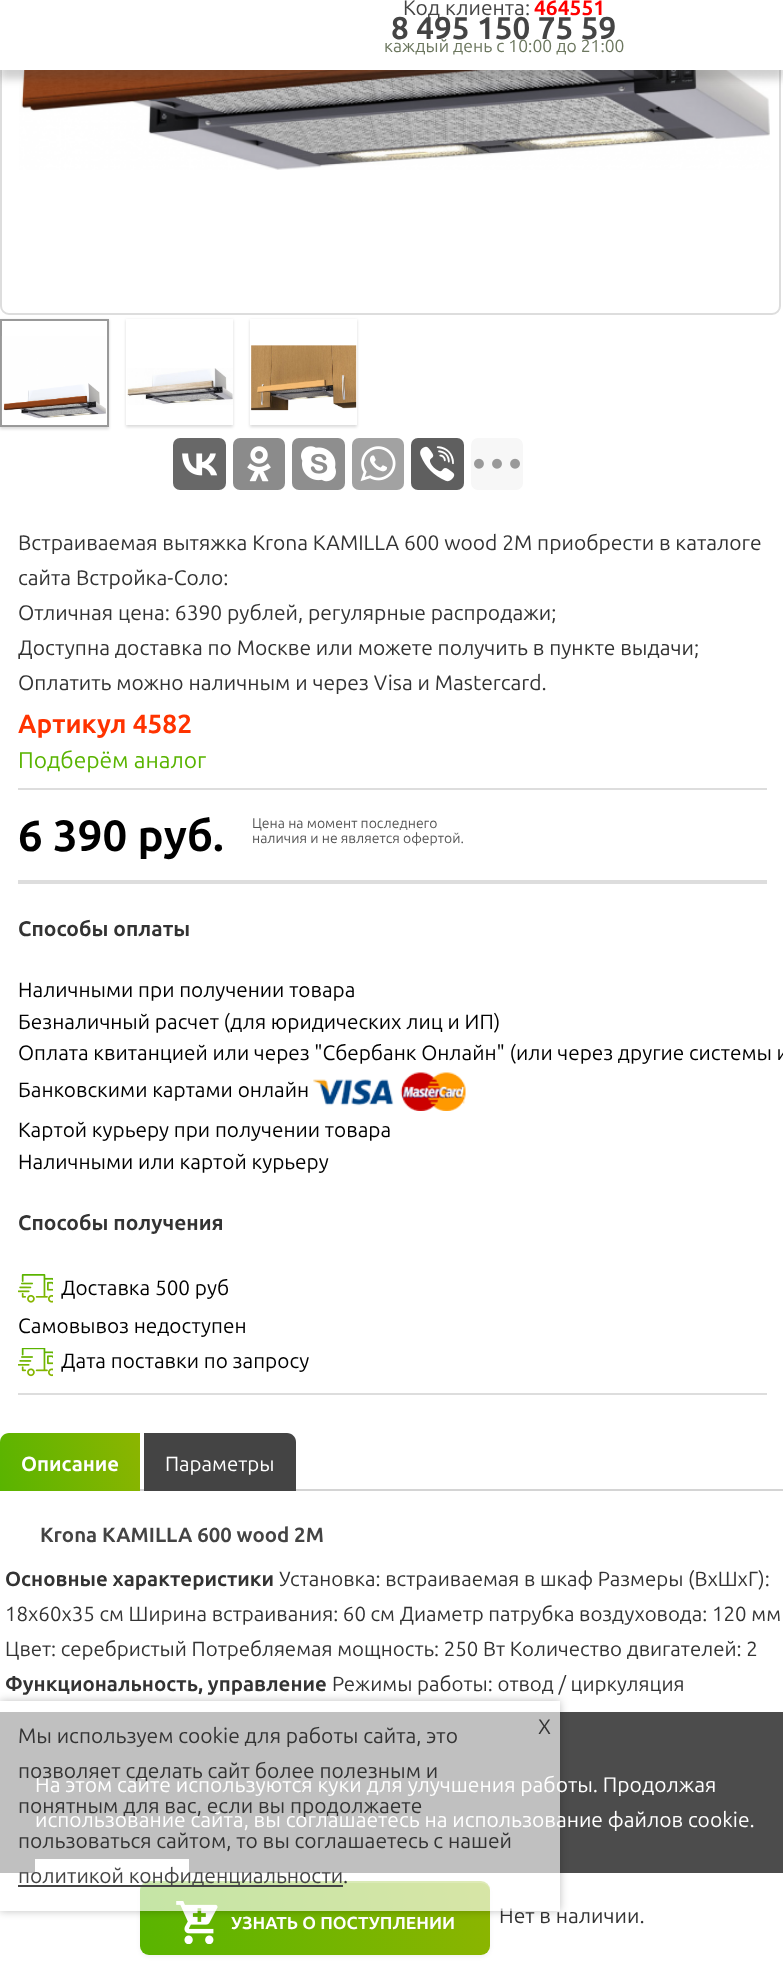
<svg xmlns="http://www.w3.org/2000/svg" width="783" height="1963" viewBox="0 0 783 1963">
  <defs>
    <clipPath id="clip1"><path d="M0 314H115V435H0ZM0 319H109V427H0Z" clip-rule="evenodd"/></clipPath>
    <clipPath id="clip2"><path d="M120 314H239V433H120ZM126 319H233V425H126Z" clip-rule="evenodd"/></clipPath>
    <clipPath id="clip3"><path d="M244 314H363V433H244ZM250 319H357V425H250Z" clip-rule="evenodd"/></clipPath>
    <linearGradient id="g1" gradientUnits="userSpaceOnUse" x1="140" y1="1952" x2="490" y2="1884"><stop offset="0" stop-color="rgb(89,180,0)"/><stop offset="1" stop-color="rgb(140,181,0)"/></linearGradient>
    <linearGradient id="g2" gradientUnits="userSpaceOnUse" x1="142" y1="1442" x2="-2.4" y2="1482"><stop offset="0" stop-color="rgb(140,181,0)"/><stop offset="1" stop-color="rgb(89,180,0)"/></linearGradient>
    <clipPath id="clip4"><path d="M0 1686H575V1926H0ZM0 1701H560V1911H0Z" clip-rule="evenodd"/></clipPath>
  </defs>
  <rect width="100%" height="100%" fill="rgb(255,255,255)"/>
  <rect x="1" y="-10" width="779" height="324" rx="8" fill="none" stroke="rgb(221,221,221)" stroke-width="2"/>
  <image x="19" y="70" width="751" height="100" href="pic1.png"/>
  <rect x="0" y="9" width="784" height="70" fill="rgba(68,68,68,0.25)" filter="blur(4.5px)"/>
  <rect x="0" y="0" width="783" height="70" fill="rgb(255,255,255)"/>
  <text x="403" y="15" font-family="Ubuntu" font-size="21" fill="rgb(68,68,68)">Код клиента:</text>
  <text x="534" y="15" font-family="Ubuntu" font-size="21" font-weight="bold" fill="rgb(255,0,0)">464551</text>
  <text x="391" y="39" font-family="Ubuntu" font-size="31.5" font-weight="bold" fill="rgb(68,68,68)">8‍ 4‍9‍5‍ 1‍5‍0‍ 7‍5‍ 5‍9‍</text>
  <text x="384" y="52" font-family="Ubuntu" font-size="17.5" fill="rgb(108,119,95)">каждый день с 10:00 до 21:00</text>
  <g clip-path="url(#clip1)">
    <rect x="0" y="320" width="109" height="109" fill="rgba(0,0,0,0.15)" filter="blur(1.5px)"/>
  </g>
  <rect x="1" y="320" width="107" height="106" fill="none" stroke="rgb(153,153,153)" stroke-width="2"/>
  <image x="1" y="336" width="105" height="84" href="pic2.png"/>
  <g clip-path="url(#clip2)">
    <rect x="126" y="320" width="107" height="107" fill="rgba(0,0,0,0.15)" filter="blur(1.5px)"/>
  </g>
  <image x="127" y="368" width="106" height="37" href="pic3.png"/>
  <g clip-path="url(#clip3)">
    <rect x="250" y="320" width="107" height="107" fill="rgba(0,0,0,0.15)" filter="blur(1.5px)"/>
  </g>
  <image x="251" y="345" width="106" height="66" href="pic4.png"/>
  <rect x="173" y="438" width="53" height="52" rx="7" fill="rgb(104,104,104)"/>
  <image x="182" y="453" width="36" height="23" href="pic5.png"/>
  <rect x="233" y="438" width="52" height="52" rx="7" fill="rgb(139,139,139)"/>
  <image x="247" y="446" width="24" height="36" href="pic6.png"/>
  <rect x="292" y="438" width="53" height="52" rx="7" fill="rgb(142,142,142)"/>
  <image x="301" y="446" width="35" height="36" href="pic7.png"/>
  <rect x="352" y="438" width="52" height="52" rx="7" fill="rgb(162,162,162)"/>
  <image x="360" y="446" width="36" height="36" href="pic8.png"/>
  <rect x="411" y="438" width="53" height="52" rx="7" fill="rgb(95,95,95)"/>
  <image x="420" y="446" width="35" height="36" href="pic9.png"/>
  <rect x="471" y="438" width="52" height="52" rx="7" fill="rgb(247,247,247)"/>
  <image x="474" y="458" width="46" height="11" href="pic10.png"/>
  <g font-family="Ubuntu" font-size="21" fill="rgb(51,51,51)">
    <text>
      <tspan x="18" y="550">Встраиваемая вытяжка Krona KAMILLA 600 wood 2M приобрести в каталоге</tspan>
      <tspan x="18" y="585">сайта Встройка-Соло:</tspan>
      <tspan x="18" y="620">Отличная цена: 6390 рублей, регулярные распродажи;</tspan>
      <tspan x="18" y="655">Доступна доставка по Москве или можете получить в пункте выдачи;</tspan>
      <tspan x="18" y="690">Оплатить можно наличным и через Visa и Mastercard.</tspan>
    </text>
  </g>
  <rect x="18" y="1393" width="749" height="2" fill="rgb(221,221,221)"/>
  <text x="18" y="733" font-family="Ubuntu" font-size="26.25" font-weight="bold" fill="rgb(255,51,0)">Артикул 4582</text>
  <text x="18" y="768" font-family="Ubuntu" font-size="22.75" fill="rgb(89,180,0)">Подберём аналог</text>
  <text x="18" y="936" font-family="Ubuntu" font-size="21" font-weight="bold" fill="rgb(51,51,51)">Способы оплаты</text>
  <g font-family="Ubuntu" font-size="20.75" fill="rgb(0,0,0)">
    <text>
      <tspan x="18" y="997">Наличными при получении товара</tspan>
      <tspan x="18" y="1029">Безналичный расчет (для юридических лиц и ИП)</tspan>
      <tspan x="18" y="1060" word-spacing="-0.1">Оплата квитанцией или через "Сбербанк Онлайн" (или через другие системы и</tspan>
      <tspan x="18" y="1097">Банковскими картами онлайн</tspan>
    </text>
  </g>
  <image x="313" y="1072" width="153" height="39" href="pic11.png"/>
  <g font-family="Ubuntu" font-size="20.75" fill="rgb(0,0,0)">
    <text>
      <tspan x="18" y="1137">Картой курьеру при получении товара</tspan>
      <tspan x="18" y="1169">Наличными или картой курьеру</tspan>
    </text>
  </g>
  <text x="18" y="1230" font-family="Ubuntu" font-size="21" font-weight="bold" fill="rgb(51,51,51)">Способы получения</text>
  <image x="18" y="1274" width="35" height="29" href="pic12.png"/>
  <g font-family="Ubuntu" font-size="20.75" fill="rgb(0,0,0)">
    <text x="61" y="1295">Доставка 500 руб</text>
    <text x="18" y="1333">Самовывоз недоступен</text>
  </g>
  <image x="18" y="1348" width="35" height="29" href="pic13.png"/>
  <text x="61" y="1368" font-family="Ubuntu" font-size="20.75" fill="rgb(0,0,0)">Дата поставки по запросу</text>
  <rect x="18" y="788" width="749" height="2" fill="rgb(221,221,221)"/>
  <rect x="18" y="880" width="749" height="4" fill="rgb(221,221,221)"/>
  <text x="18" y="851" font-family="Ubuntu" font-size="43.75" font-weight="bold" fill="rgb(0,0,0)">6 390 руб.</text>
  <g font-family="Ubuntu" font-size="14" fill="rgb(85,85,85)">
    <text>
      <tspan x="252" y="828">Цена на момент последнего</tspan>
      <tspan x="252" y="843">наличия и не является офертой.</tspan>
    </text>
  </g>
  <rect x="140" y="1883" width="350" height="74" rx="9" fill="rgba(0,0,0,0.05)" filter="blur(2px)"/>
  <rect x="140" y="1881" width="350" height="74" rx="9" fill="url(#g1)"/>
  <path d="M149 1883H481C486 1883 490 1887 490 1892C490 1887 488 1882 483 1881H147C142 1882 140 1887 140 1892C140 1887 144 1883 149 1883Z" fill="rgba(255,255,255,0.2)"/>
  <image x="176" y="1901" width="42" height="43" href="pic14.png"/>
  <text x="231" y="1929" font-family="Ubuntu" font-size="17.5" font-weight="bold" fill="rgb(255,255,255)">УЗНАТЬ О ПОСТУПЛЕНИИ</text>
  <text x="499" y="1923" font-family="Ubuntu" font-size="21" fill="rgb(51,51,51)">Нет в наличии.</text>
  <rect x="140" y="1489" width="643" height="2" fill="rgb(212,212,212)"/>
  <path d="M9 1433H140V1491H0V1442C0 1437 4 1433 9 1433Z" fill="url(#g2)"/>
  <text x="21" y="1471" font-family="Ubuntu" font-size="20.45" font-weight="bold" fill="rgb(255,255,255)">Описание</text>
  <path d="M144 1433H287C292 1433 296 1437 296 1442V1491H144Z" fill="rgb(68,68,68)"/>
  <text x="165" y="1471" font-family="Ubuntu" font-size="20.45" fill="rgb(255,255,255)">Параметры</text>
  <text x="40" y="1542" font-family="Ubuntu" font-size="20.45" font-weight="bold" fill="rgb(68,68,68)">Krona KAMILLA 600 wood 2M</text>
  <text x="5" y="1586" font-family="Ubuntu" font-size="20.45" font-weight="bold" fill="rgb(51,51,51)">Основные характеристики</text>
  <g font-family="Ubuntu" font-size="20.45" fill="rgb(51,51,51)">
    <text x="279" y="1586">Установка: встраиваемая в шкаф Размеры (ВхШхГ):</text>
    <text>
      <tspan x="5" y="1621">18х60х35 см Ширина встраивания: 60 см Диаметр патрубка воздуховода: 120 мм</tspan>
      <tspan x="5" y="1656">Цвет: серебристый Потребляемая мощность: 250 Вт Количество двигателей: 2</tspan>
    </text>
  </g>
  <text x="5" y="1691" font-family="Ubuntu" font-size="20.45" font-weight="bold" fill="rgb(51,51,51)">Функциональность, управление</text>
  <text x="332" y="1691" font-family="Ubuntu" font-size="20.45" fill="rgb(51,51,51)">Режимы работы: отвод / циркуляция</text>
  <rect x="0" y="1712" width="783" height="161" fill="rgba(0,0,0,0.7)"/>
  <rect x="35" y="1859" width="154" height="14" fill="rgb(255,255,255)"/>
  <g clip-path="url(#clip4)">
    <rect x="0" y="1701" width="560" height="210" fill="rgba(0,0,0,0.25)" filter="blur(4.5px)"/>
  </g>
  <g font-family="Ubuntu" font-size="21" fill="rgb(255,255,255)">
    <text>
      <tspan x="35" y="1792">На этом сайте используются куки для улучшения работы. Продолжая</tspan>
      <tspan x="35" y="1827">использование сайта, вы соглашаетесь на использование файлов cookie.</tspan>
    </text>
  </g>
  <rect x="0" y="1712" width="560" height="199" fill="rgba(255,255,255,0.65)"/>
  <g font-family="Ubuntu" font-size="21" fill="rgb(51,51,51)">
    <text x="18" y="1743">Мы используем cookie для работы сайта, это</text>
    <text x="538" y="1734">X</text>
    <text>
      <tspan x="18" y="1778">позволяет сделать сайт более полезным и</tspan>
      <tspan x="18" y="1813">понятным для вас, если вы продолжаете</tspan>
      <tspan x="18" y="1848">пользоваться сайтом, то вы соглашаетесь с нашей</tspan>
    </text>
  </g>
  <rect x="18" y="1885" width="325" height="2" fill="rgb(68,68,68)"/>
  <text x="18" y="1883" font-family="Ubuntu" font-size="21" fill="rgb(68,68,68)">политикой конфиденциальности</text>
  <text x="343" y="1883" font-family="Ubuntu" font-size="21" fill="rgb(51,51,51)">.</text>
</svg>
